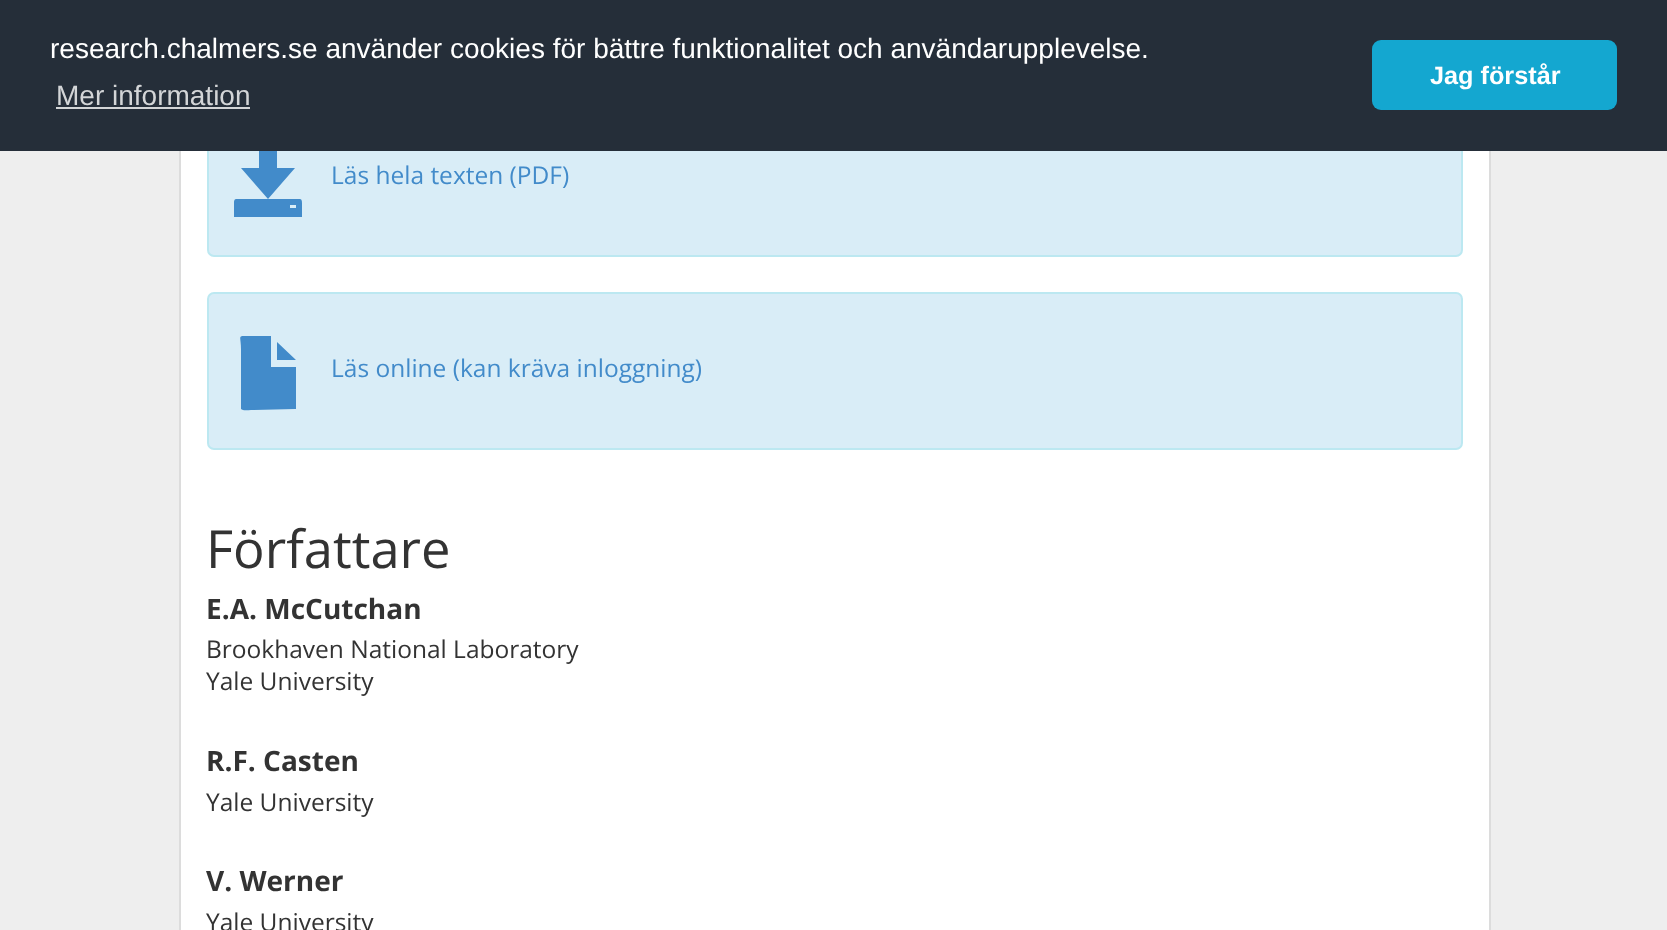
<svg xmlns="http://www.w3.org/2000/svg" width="1667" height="930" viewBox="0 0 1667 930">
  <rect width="100%" height="100%" fill="rgb(238,238,238)"/>
  <rect x="181" y="151" width="1308" height="779" fill="rgb(255,255,255)"/>
  <rect x="208" y="101" width="1254" height="155" rx="6" fill="rgb(217,237,247)" stroke="rgb(188,232,241)" stroke-width="2"/>
  <path d="M234 217V203C234 202 234 199 236 199H300C302 199 302 202 302 203V217ZM241 168L268 199L295 168H277V144H259V168ZM290 208H296V205H290Z" fill="rgb(66,139,202)"/>
  <rect x="0" y="0" width="1667" height="151" fill="rgb(37,46,57)"/>
  <text x="50" y="58" font-family="Liberation Sans" font-size="28" fill="rgb(255,255,255)">research.chalmers.se använder cookies för bättre funktionalitet och användarupplevelse.</text>
  <text x="56" y="105" font-family="Liberation Sans" font-size="28" fill="rgb(211,213,215)">Mer information</text>
  <rect x="56" y="107" width="194" height="2" fill="rgb(211,213,215)"/>
  <rect x="1372" y="40" width="245" height="70" rx="9" fill="rgb(20,167,208)"/>
  <text x="1430" y="84" font-family="Liberation Sans" font-size="25.25" font-weight="bold" fill="rgb(255,255,255)">Jag förstår</text>
  <rect x="1489" y="151" width="2" height="779" fill="rgb(220,220,220)"/>
  <rect x="179" y="151" width="2" height="779" fill="rgb(220,220,220)"/>
  <text x="331" y="184" font-family="Open Sans" font-size="24.5" fill="rgb(66,139,202)">Läs hela texten (PDF)</text>
  <rect x="208" y="293" width="1254" height="156" rx="6" fill="rgb(217,237,247)" stroke="rgb(188,232,241)" stroke-width="2"/>
  <path d="M241 408V349C241 336 237 336 247 336H271V367H296V409H295L251 410C248 410 243 411 241 409ZM277 360V342L296 360Z" fill="rgb(66,139,202)"/>
  <text x="331" y="377" font-family="Open Sans" font-size="24.5" fill="rgb(66,139,202)">Läs online (kan kräva inloggning)</text>
  <text x="206" y="568" font-family="Open Sans" font-size="52.5" fill="rgb(51,51,51)">Författare</text>
  <text x="206" y="619" font-family="Open Sans" font-size="28" font-weight="bold" fill="rgb(51,51,51)">E.A. McCutchan</text>
  <g font-family="Open Sans" font-size="24.5" fill="rgb(51,51,51)">
    <text>
      <tspan x="206" y="658">Brookhaven National Laboratory</tspan>
      <tspan x="206" y="690">Yale University</tspan>
    </text>
  </g>
  <text x="206" y="771" font-family="Open Sans" font-size="28" font-weight="bold" fill="rgb(51,51,51)">R.F. Casten</text>
  <text x="206" y="811" font-family="Open Sans" font-size="24.5" fill="rgb(51,51,51)">Yale University</text>
  <text x="206" y="891" font-family="Open Sans" font-size="28" font-weight="bold" fill="rgb(51,51,51)">V. Werner</text>
  <text x="206" y="931" font-family="Open Sans" font-size="24.5" fill="rgb(51,51,51)">Yale University</text>
</svg>
